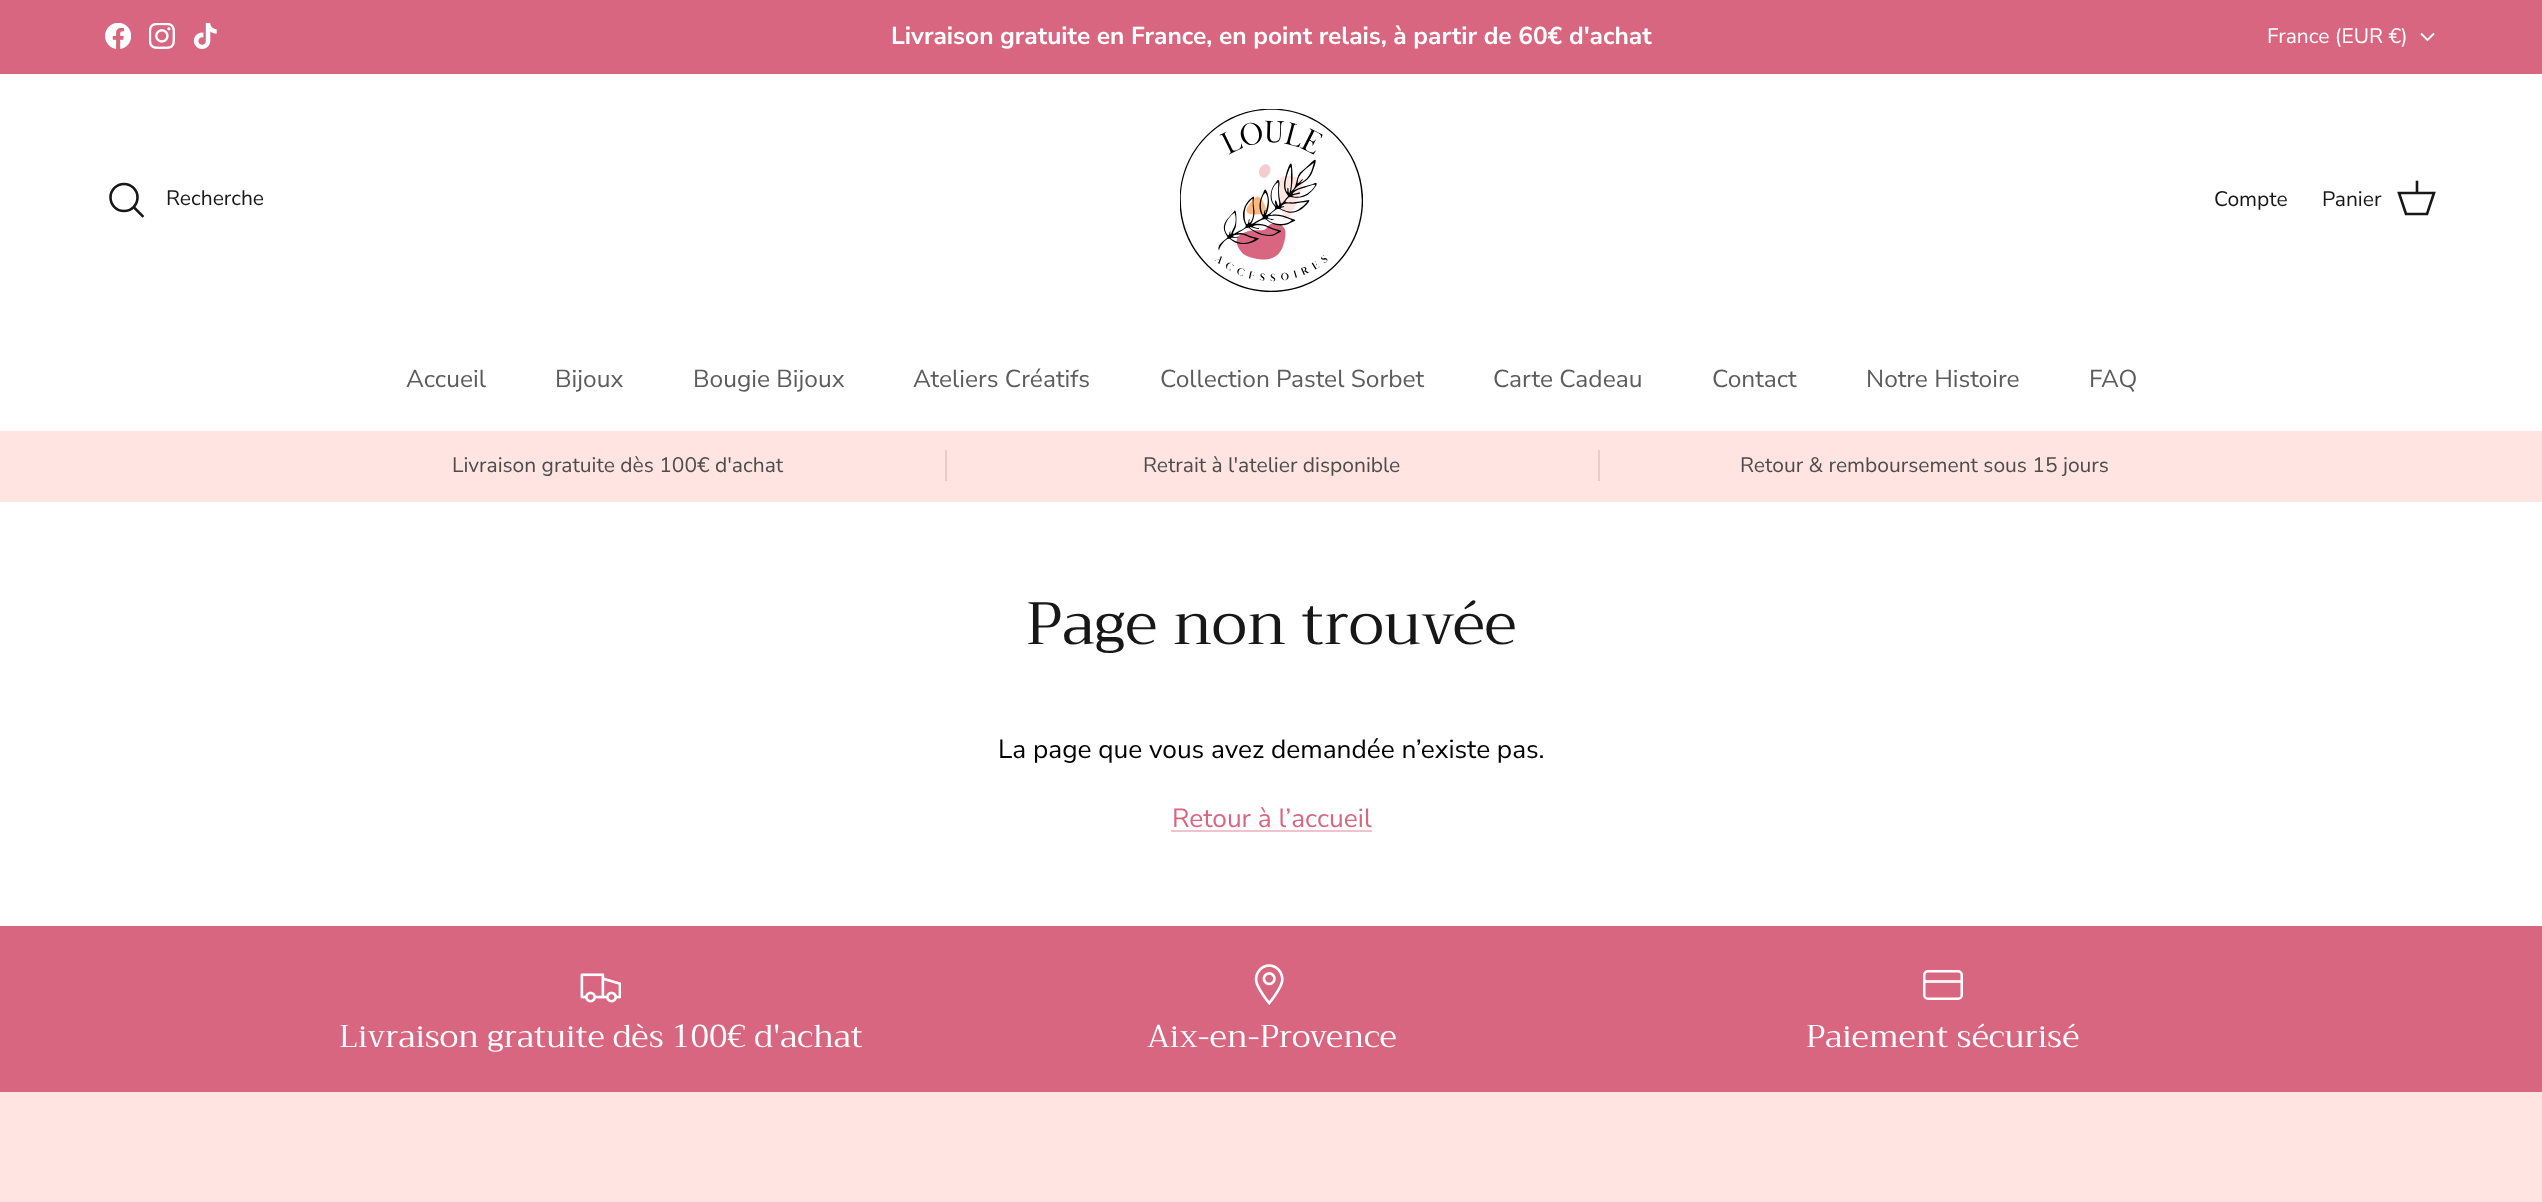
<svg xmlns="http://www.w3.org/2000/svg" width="2542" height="1202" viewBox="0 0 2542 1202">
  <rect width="100%" height="100%" fill="rgb(255,255,255)"/>
  <rect x="0" y="0" width="2542" height="74" fill="rgb(216,102,128)"/>
  <image x="105" y="23" width="26" height="26" href="pic1.png"/>
  <image x="149" y="23" width="26" height="26" href="pic2.png"/>
  <image x="193" y="23" width="24" height="26" href="pic3.png"/>
  <text x="891" y="44" font-family="Nunito Sans" font-size="24.5" font-weight="bold" fill="rgb(255,255,255)">Livraison gratuite en France, en point relais, à partir de 60€ d'achat</text>
  <text x="2267" y="43" font-family="Nunito Sans" font-size="21" fill="rgb(255,255,255)">France (EUR €)</text>
  <path d="M2434 33.5L2427.5 40L2421 33.5" fill="none" stroke="rgb(255,255,255)" stroke-width="1.8"/>
  <circle cx="124" cy="197.5" r="13.5" fill="none" stroke="rgb(23,23,23)" stroke-width="2.6"/>
  <text x="166" y="205" font-family="Nunito Sans" font-size="21" fill="rgb(23,23,23)">Recherche</text>
  <path d="M134.5 208L142.5 216" fill="none" stroke="rgb(23,23,23)" stroke-width="2.6" stroke-linecap="square"/>
  <image x="1180" y="109" width="183" height="183" href="pic4.png"/>
  <g font-family="Nunito Sans" font-size="21" fill="rgb(23,23,23)">
    <text x="2214" y="206">Compte</text>
    <text x="2322" y="206">Panier</text>
  </g>
  <path d="M2399 193H2434L2427 214H2406Z" fill="none" stroke="rgb(23,23,23)" stroke-width="2.6"/>
  <path d="M2417 192.5V182" fill="none" stroke="rgb(23,23,23)" stroke-width="2.6" stroke-linecap="square"/>
  <g font-family="Nunito Sans" font-size="24.5" fill="rgb(92,92,92)">
    <text x="406" y="387">Accueil</text>
    <text x="555" y="387">Bijoux</text>
    <text x="693" y="387">Bougie Bijoux</text>
    <text x="913" y="387">Ateliers Créatifs</text>
    <text x="1160" y="387">Collection Pastel Sorbet</text>
    <text x="1493" y="387">Carte Cadeau</text>
    <text x="1712" y="387">Contact</text>
    <text x="1866" y="387">Notre Histoire</text>
    <text x="2089" y="387">FAQ</text>
  </g>
  <rect x="0" y="431" width="2542" height="71" fill="rgb(255,228,225)"/>
  <text x="452" y="472" font-family="Nunito Sans" font-size="21" fill="rgb(76,76,75)">Livraison gratuite dès 100€ d'achat</text>
  <rect x="945" y="450" width="2" height="31" fill="rgb(228,205,203)"/>
  <text x="1143" y="472" font-family="Nunito Sans" font-size="21" fill="rgb(76,76,75)">Retrait à l'atelier disponible</text>
  <rect x="1598" y="450" width="2" height="31" fill="rgb(228,205,203)"/>
  <text x="1740" y="472" font-family="Nunito Sans" font-size="21" fill="rgb(76,76,75)">Retour &amp; remboursement sous 15 jours</text>
  <text x="1026" y="644" font-family="Trirong" font-size="59.5" fill="rgb(23,23,23)">Page non trouvée</text>
  <text x="998" y="758" font-family="Nunito Sans" font-size="26.25" fill="rgb(0,0,0)">La page que vous avez demandée n’existe pas.</text>
  <text x="1172" y="827" font-family="Nunito Sans" font-size="26.25" fill="rgb(216,102,128)">Retour à l’accueil</text>
  <rect x="1171" y="830" width="201" height="2" fill="rgb(239,194,204)"/>
  <rect x="0" y="926" width="2542" height="166" fill="rgb(216,102,128)"/>
  <image x="580" y="973" width="41" height="30" href="pic5.png"/>
  <text x="339" y="1047" font-family="Trirong" font-size="31.6" fill="rgb(255,255,255)">Livraison gratuite dès 100€ d'achat</text>
  <image x="1254" y="964" width="30" height="41" href="pic6.png"/>
  <text x="1147" y="1047" font-family="Trirong" font-size="31.6" fill="rgb(255,255,255)">Aix-en-Provence</text>
  <rect x="1924.25" y="971.25" width="37.5" height="27.5" rx="3.75" fill="none" stroke="rgb(255,255,255)" stroke-width="2.5"/>
  <rect x="1924" y="980" width="38" height="3" fill="rgba(255,255,255,0.87)"/>
  <text x="1806" y="1047" font-family="Trirong" font-size="31.6" fill="rgb(255,255,255)">Paiement sécurisé</text>
  <rect x="0" y="1092" width="2542" height="110" fill="rgb(255,228,225)"/>
</svg>
